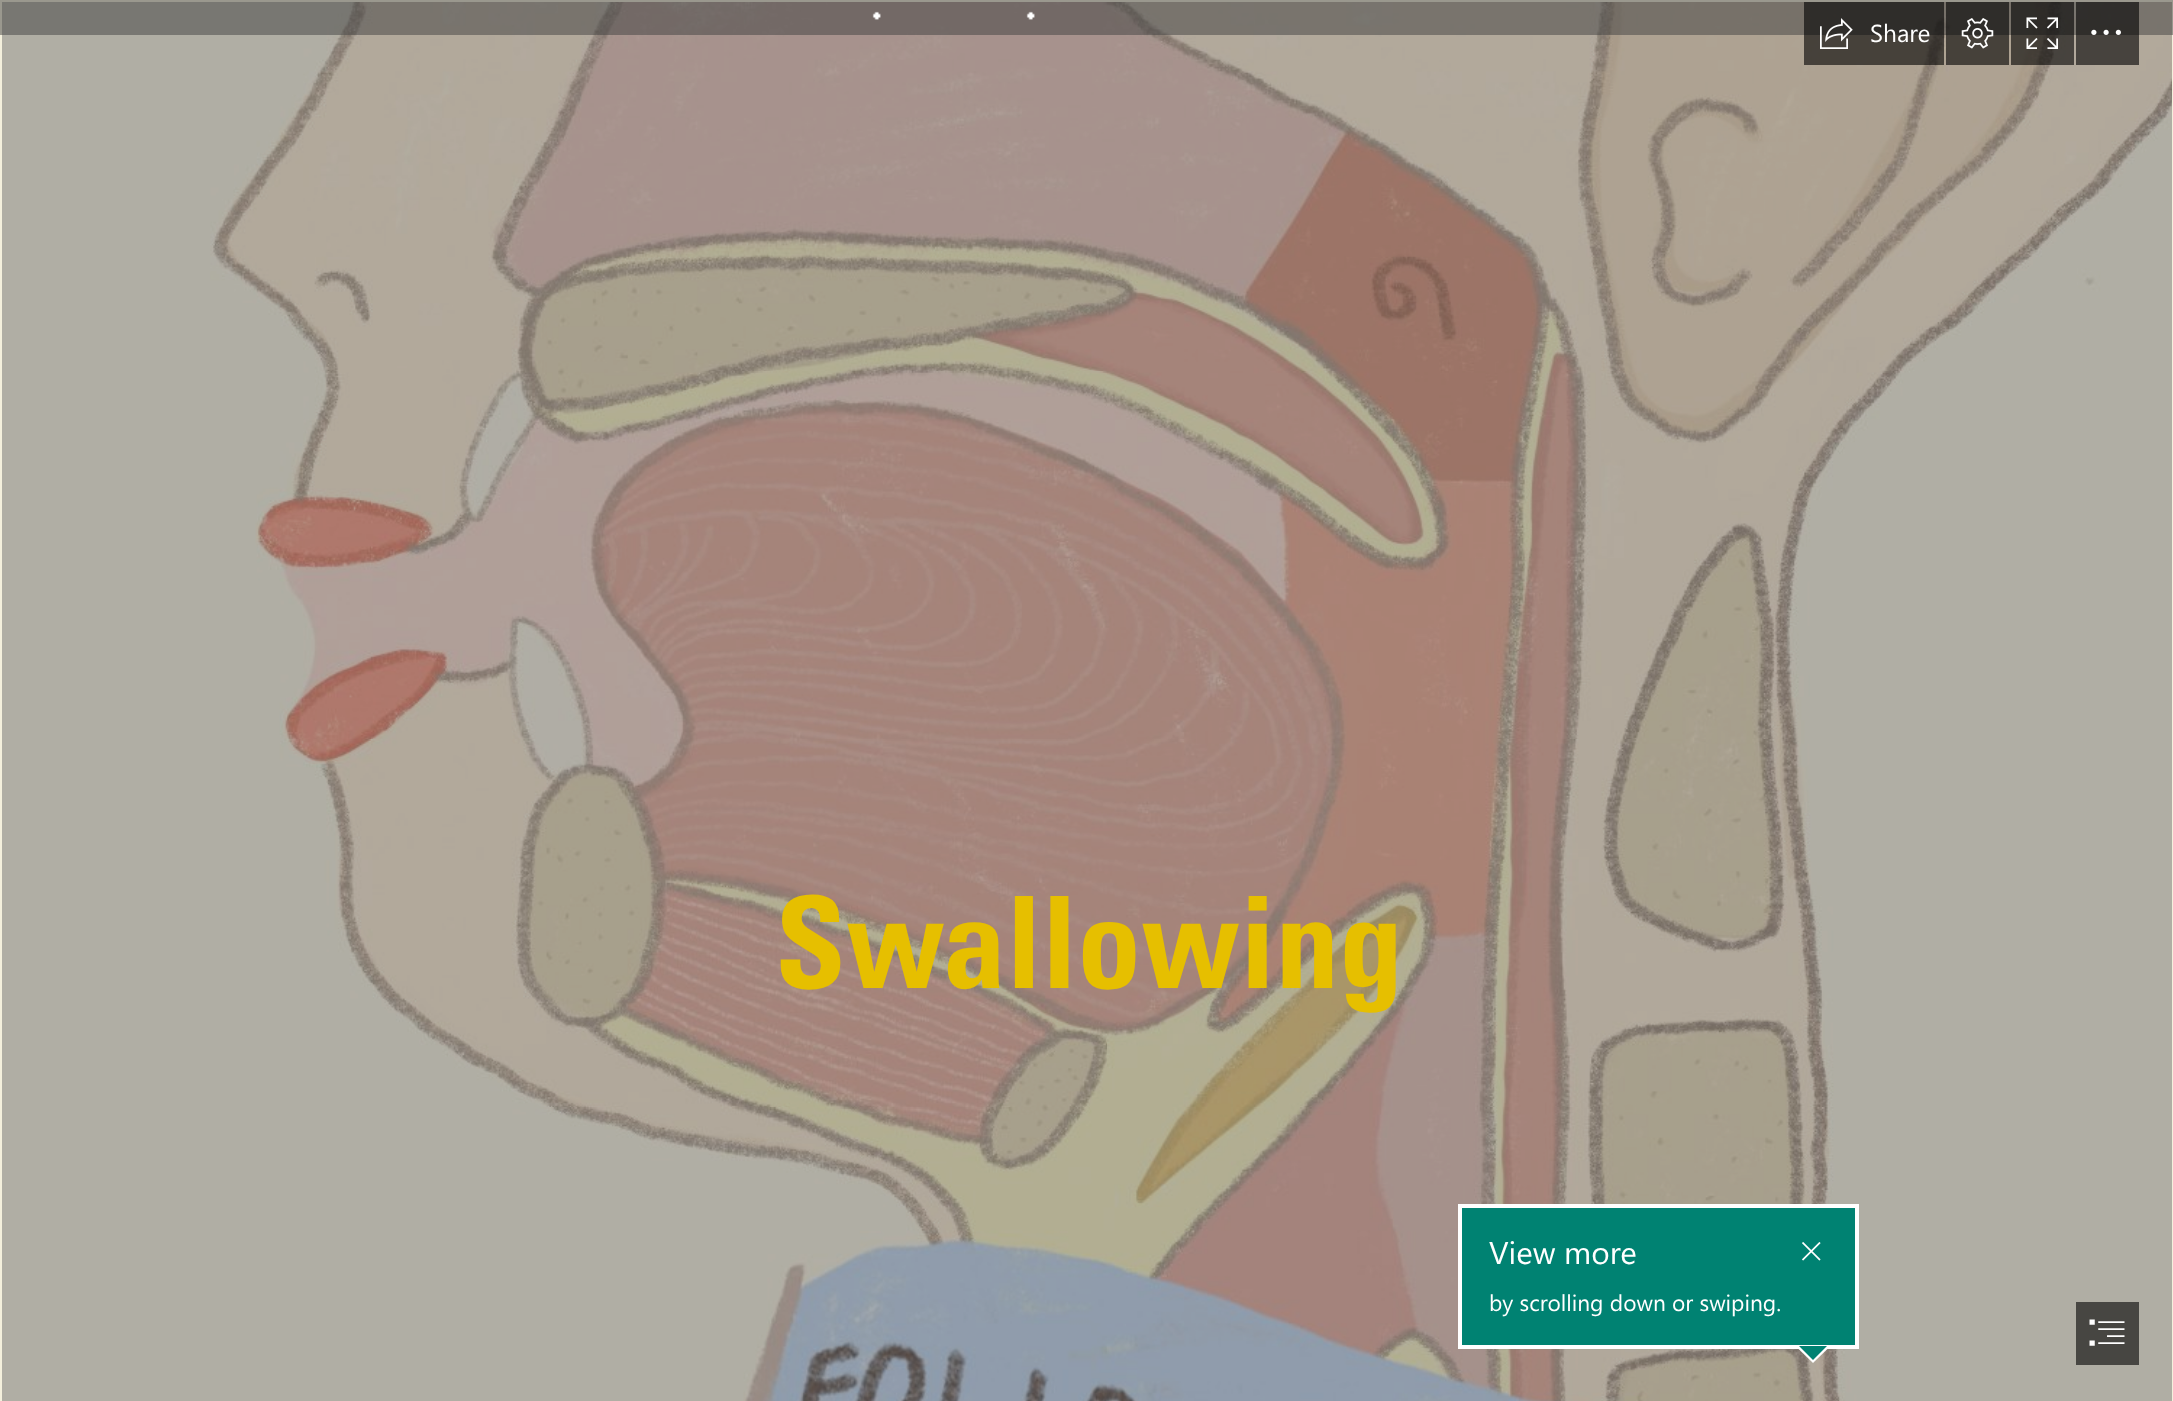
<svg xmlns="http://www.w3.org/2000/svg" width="2173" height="1401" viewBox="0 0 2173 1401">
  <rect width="100%" height="100%" fill="rgb(244,240,220)"/>
  <image x="2" y="2" width="2170" height="1399" href="pic6.png"/>
  <rect x="0" y="0" width="2173" height="35" fill="rgba(64,64,64,0.5)"/>
  <rect x="1804" y="2" width="140" height="63" fill="rgba(0,0,0,0.6)"/>
  <image x="1820" y="18" width="33" height="31" href="pic1.png"/>
  <text x="1870" y="42" font-family="Segoe UI" font-size="24.5" fill="rgb(255,255,255)">Share</text>
  <rect x="1946" y="2" width="63" height="63" fill="rgba(0,0,0,0.6)"/>
  <image x="1961" y="18" width="33" height="31" href="pic2.png"/>
  <rect x="2011" y="2" width="63" height="63" fill="rgba(0,0,0,0.6)"/>
  <image x="2026" y="17" width="32" height="32" href="pic3.png"/>
  <rect x="2076" y="2" width="63" height="63" fill="rgba(0,0,0,0.6)"/>
  <image x="2091" y="29" width="30" height="6" href="pic4.png"/>
  <image x="872" y="11" width="163" height="9" href="pic5.png"/>
  <text x="775" y="988" font-family="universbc" font-size="127.5" font-weight="bold" fill="rgb(230,191,0)">Swallowing</text>
  <rect x="1460" y="1206" width="397" height="141" fill="rgb(0,130,114)" stroke="rgb(255,255,255)" stroke-width="4"/>
  <text x="1489" y="1264" font-family="Segoe UI" font-size="31.5" fill="rgb(255,255,255)">View more</text>
  <text x="1489" y="1311" font-family="Segoe UI" font-size="22.75" fill="rgb(255,255,255)">by scrolling down or swiping.</text>
  <image x="1802" y="1242" width="19" height="19" href="pic7.png"/>
  <path d="M1795.5 1346H1830.5L1813 1363Z" fill="rgb(255,255,255)"/>
  <path d="M1799 1346H1827L1813 1360Z" fill="rgb(0,130,114)"/>
  <rect x="2076" y="1302" width="63" height="63" fill="rgb(71,70,66)"/>
  <image x="2089" y="1319" width="36" height="27" href="pic8.png"/>
</svg>
